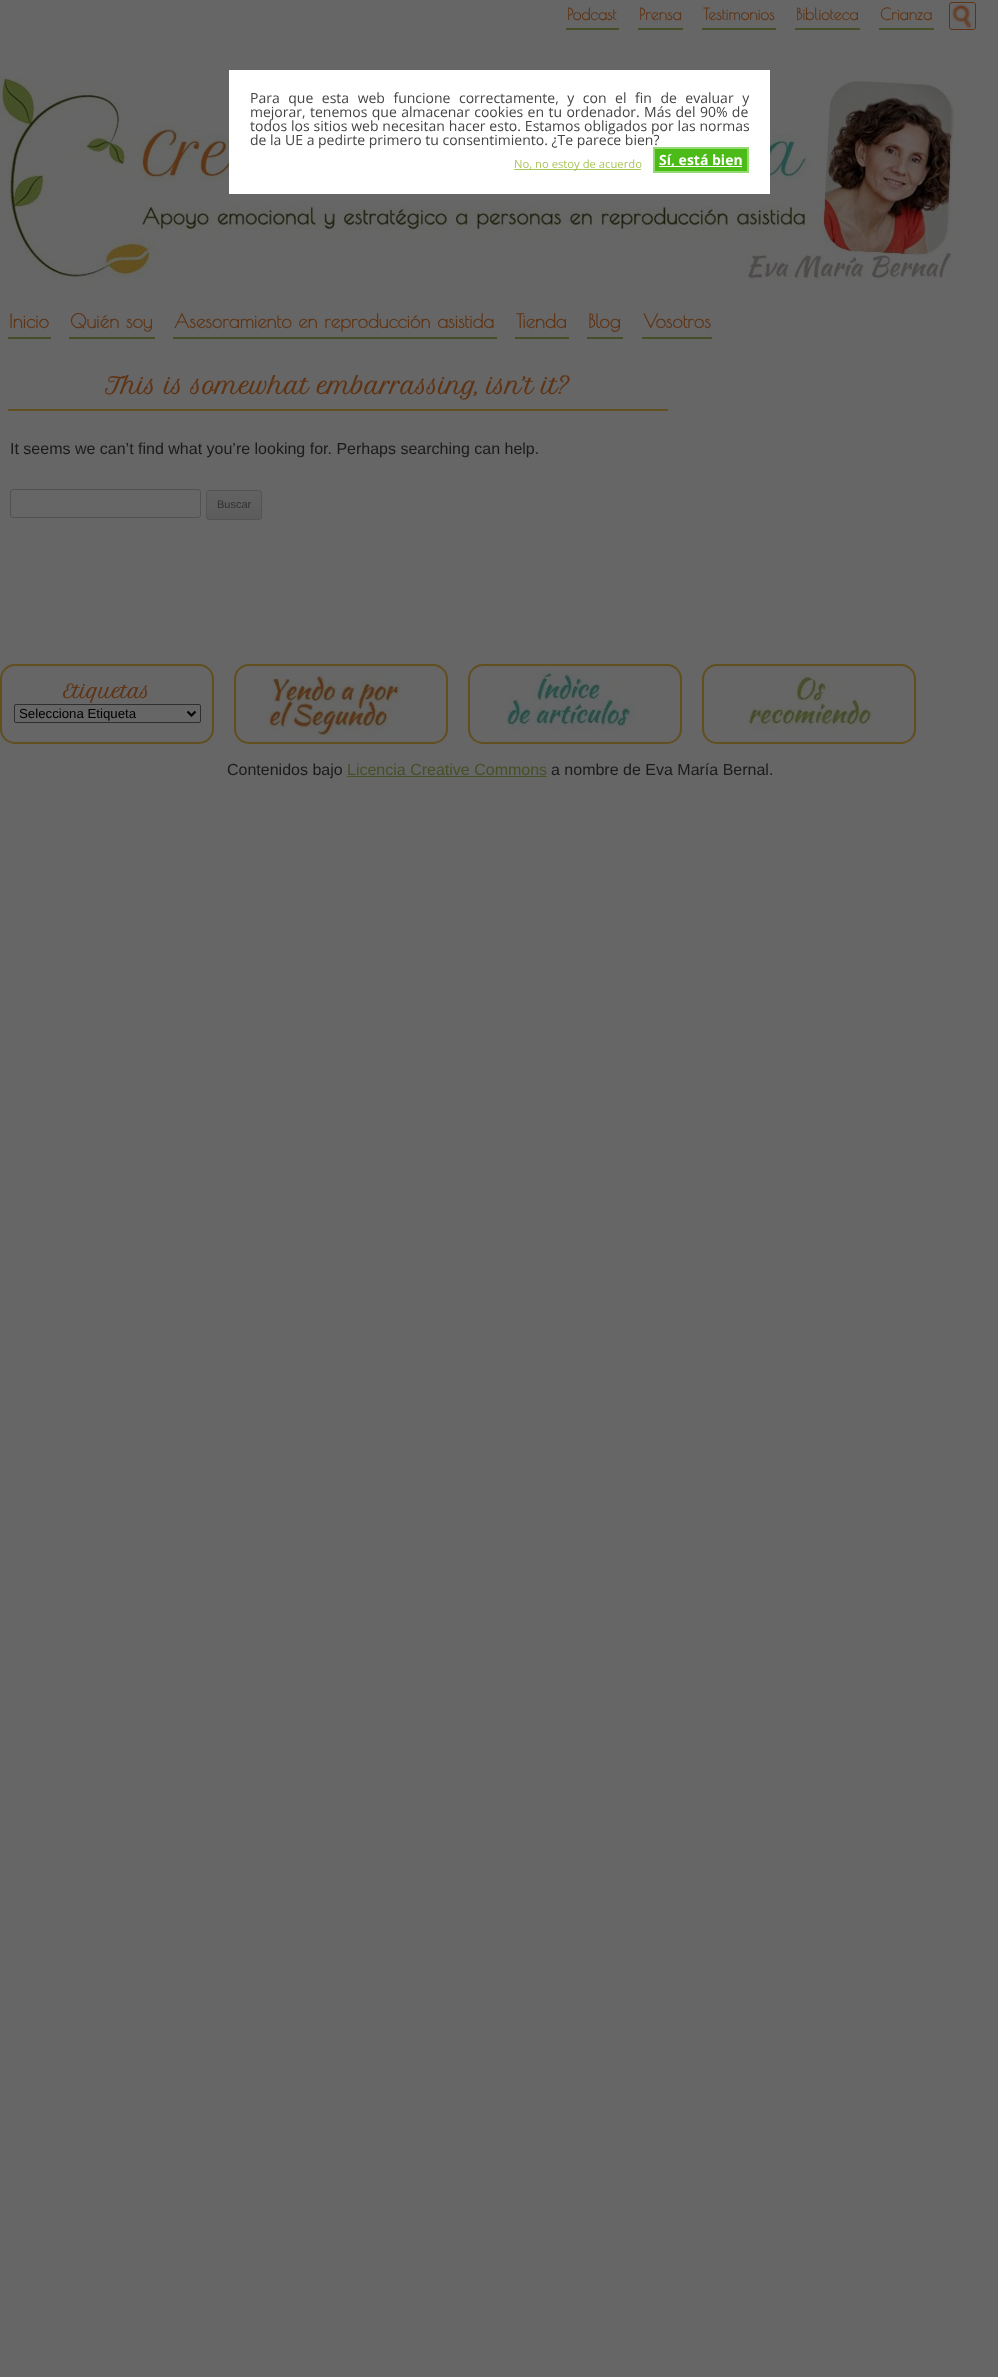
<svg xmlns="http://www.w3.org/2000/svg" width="998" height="2377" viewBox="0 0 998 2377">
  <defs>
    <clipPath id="clip1"><rect x="206" y="490" width="56" height="30" rx="3"/></clipPath>
    <linearGradient id="g1" gradientUnits="userSpaceOnUse" x1="234" y1="491" x2="234" y2="519"><stop offset="0" stop-color="rgb(98,98,98)"/><stop offset="1" stop-color="rgb(92,92,92)"/></linearGradient>
  </defs>
  <rect width="100%" height="100%" fill="rgb(102,102,102)"/>
  <rect x="566" y="28" width="53" height="2" fill="rgb(68,79,39)"/>
  <text x="567" y="20" font-family="Poiret One" font-size="16" font-weight="bold" fill="rgb(95,52,20)">Podcast</text>
  <rect x="638" y="28" width="45" height="2" fill="rgb(68,79,39)"/>
  <text x="639" y="20" font-family="Poiret One" font-size="16" font-weight="bold" fill="rgb(95,52,20)">Prensa</text>
  <rect x="702" y="28" width="74" height="2" fill="rgb(68,79,39)"/>
  <text x="703" y="20" font-family="Poiret One" font-size="16" font-weight="bold" fill="rgb(95,52,20)">Testimonios</text>
  <rect x="795" y="28" width="65" height="2" fill="rgb(68,79,39)"/>
  <text x="796" y="20" font-family="Poiret One" font-size="16" font-weight="bold" fill="rgb(95,52,20)">Biblioteca</text>
  <rect x="879" y="28" width="55" height="2" fill="rgb(68,79,39)"/>
  <text x="880" y="20" font-family="Poiret One" font-size="16" font-weight="bold" fill="rgb(95,52,20)">Crianza</text>
  <rect x="949.5" y="2.5" width="26" height="27" rx="2.5" fill="none" stroke="rgb(95,52,20)"/>
  <image x="952" y="4" width="20" height="25" href="pic1.png"/>
  <image x="0" y="71" width="960" height="213" href="pic2.png"/>
  <rect x="8" y="337" width="43" height="2" fill="rgb(68,79,39)"/>
  <text x="9" y="328" font-family="Poiret One" font-size="19" font-weight="bold" fill="rgb(95,52,20)">Inicio</text>
  <rect x="69" y="337" width="86" height="2" fill="rgb(68,79,39)"/>
  <text x="70" y="328" font-family="Poiret One" font-size="19" font-weight="bold" fill="rgb(95,52,20)">Quién soy</text>
  <rect x="173" y="337" width="324" height="2" fill="rgb(68,79,39)"/>
  <text x="174" y="328" font-family="Poiret One" font-size="19" font-weight="bold" fill="rgb(95,52,20)">Asesoramiento en reproducción asistida</text>
  <rect x="515" y="337" width="54" height="2" fill="rgb(68,79,39)"/>
  <text x="516" y="328" font-family="Poiret One" font-size="19" font-weight="bold" fill="rgb(95,52,20)">Tienda</text>
  <rect x="587" y="337" width="36" height="2" fill="rgb(68,79,39)"/>
  <text x="588" y="328" font-family="Poiret One" font-size="19" font-weight="bold" fill="rgb(95,52,20)">Blog</text>
  <rect x="642" y="337" width="70" height="2" fill="rgb(68,79,39)"/>
  <text x="643" y="328" font-family="Poiret One" font-size="19" font-weight="bold" fill="rgb(95,52,20)">Vosotros</text>
  <rect x="8" y="409" width="660" height="2" fill="rgb(97,79,32)"/>
  <text x="105" y="394" font-family="Petit Formal Script" font-size="22" font-weight="bold" fill="rgb(95,52,20)">This is somewhat embarrassing, isn’t it?</text>
  <text x="10" y="454" font-family="Liberation Sans" font-size="16" fill="rgb(27,27,27)">It seems we can’t find what you’re looking for. Perhaps searching can help.</text>
  <rect x="10.5" y="489.5" width="190" height="28" rx="2.5" fill="none" stroke="rgb(82,82,82)"/>
  <g clip-path="url(#clip1)">
    <rect x="206" y="491" width="56" height="28" fill="url(#g1)"/>
  </g>
  <rect x="206.5" y="490.5" width="55" height="29" rx="2.5" fill="none" stroke="rgb(84,84,84)"/>
  <text x="217" y="508" font-family="Liberation Sans" font-size="11" fill="rgb(50,50,50)">Buscar</text>
  <rect x="1" y="665" width="212" height="78" rx="14" fill="none" stroke="rgb(97,79,32)" stroke-width="2"/>
  <text x="63" y="698" font-family="Petit Formal Script" font-size="18" font-weight="bold" fill="rgb(95,52,20)">Etiquetas</text>
  <rect x="14.5" y="704.5" width="186" height="18" rx="1.5" fill="none" stroke="rgb(47,47,47)"/>
  <path d="M187.5 711.5L191.5 715.5L195.5 711.5" fill="none" stroke="rgb(0,0,0)" stroke-width="2"/>
  <text x="19" y="718" font-family="Liberation Sans" font-size="13.25" fill="rgb(0,0,0)">Selecciona Etiqueta</text>
  <rect x="235" y="665" width="212" height="78" rx="14" fill="none" stroke="rgb(97,79,32)" stroke-width="2"/>
  <image x="264" y="671" width="138" height="64" href="pic3.png"/>
  <rect x="469" y="665" width="212" height="78" rx="14" fill="none" stroke="rgb(97,79,32)" stroke-width="2"/>
  <image x="506" y="671" width="129" height="62" href="pic4.png"/>
  <rect x="703" y="665" width="212" height="78" rx="14" fill="none" stroke="rgb(97,79,32)" stroke-width="2"/>
  <image x="746" y="671" width="127" height="64" href="pic5.png"/>
  <text x="227" y="775" font-family="Liberation Sans" font-size="16" fill="rgb(27,27,27)">Contenidos bajo</text>
  <text x="347" y="775" font-family="Liberation Sans" font-size="16" fill="rgb(68,80,38)">Licencia Creative Commons</text>
  <rect x="347" y="776" width="200" height="1" fill="rgb(68,80,38)"/>
  <text x="551" y="775" font-family="Liberation Sans" font-size="16" fill="rgb(27,27,27)">a nombre de Eva María Bernal.</text>
  <rect x="229" y="70" width="541" height="124" fill="rgb(255,255,255)"/>
  <g font-family="Open Sans" font-size="14" fill="rgb(68,68,68)">
    <text>
      <tspan x="250" y="103" word-spacing="4.9">Para que esta web funcione correctamente, y con el fin de evaluar y</tspan>
      <tspan x="250" y="117" word-spacing="0.75">mejorar, tenemos que almacenar cookies en tu ordenador. Más del 90% de</tspan>
      <tspan x="250" y="131" word-spacing="0.25">todos los sitios web necesitan hacer esto. Estamos obligados por las normas</tspan>
      <tspan x="250" y="145">de la UE a pedirte primero tu consentimiento. ¿Te parece bien?</tspan>
    </text>
  </g>
  <rect x="514" y="169" width="127" height="1" fill="rgb(171,199,94)"/>
  <text x="514" y="168" font-family="Open Sans" font-size="11.25" fill="rgb(171,199,94)">No, no estoy de acuerdo</text>
  <rect x="654" y="148" width="94" height="24" fill="rgb(76,187,23)" stroke="rgb(147,219,112)" stroke-width="2"/>
  <rect x="659" y="166" width="83" height="1" fill="rgb(255,255,255)"/>
  <text x="659" y="165" font-family="Open Sans" font-size="14" font-weight="bold" fill="rgb(255,255,255)">Sí, está bien</text>
</svg>
